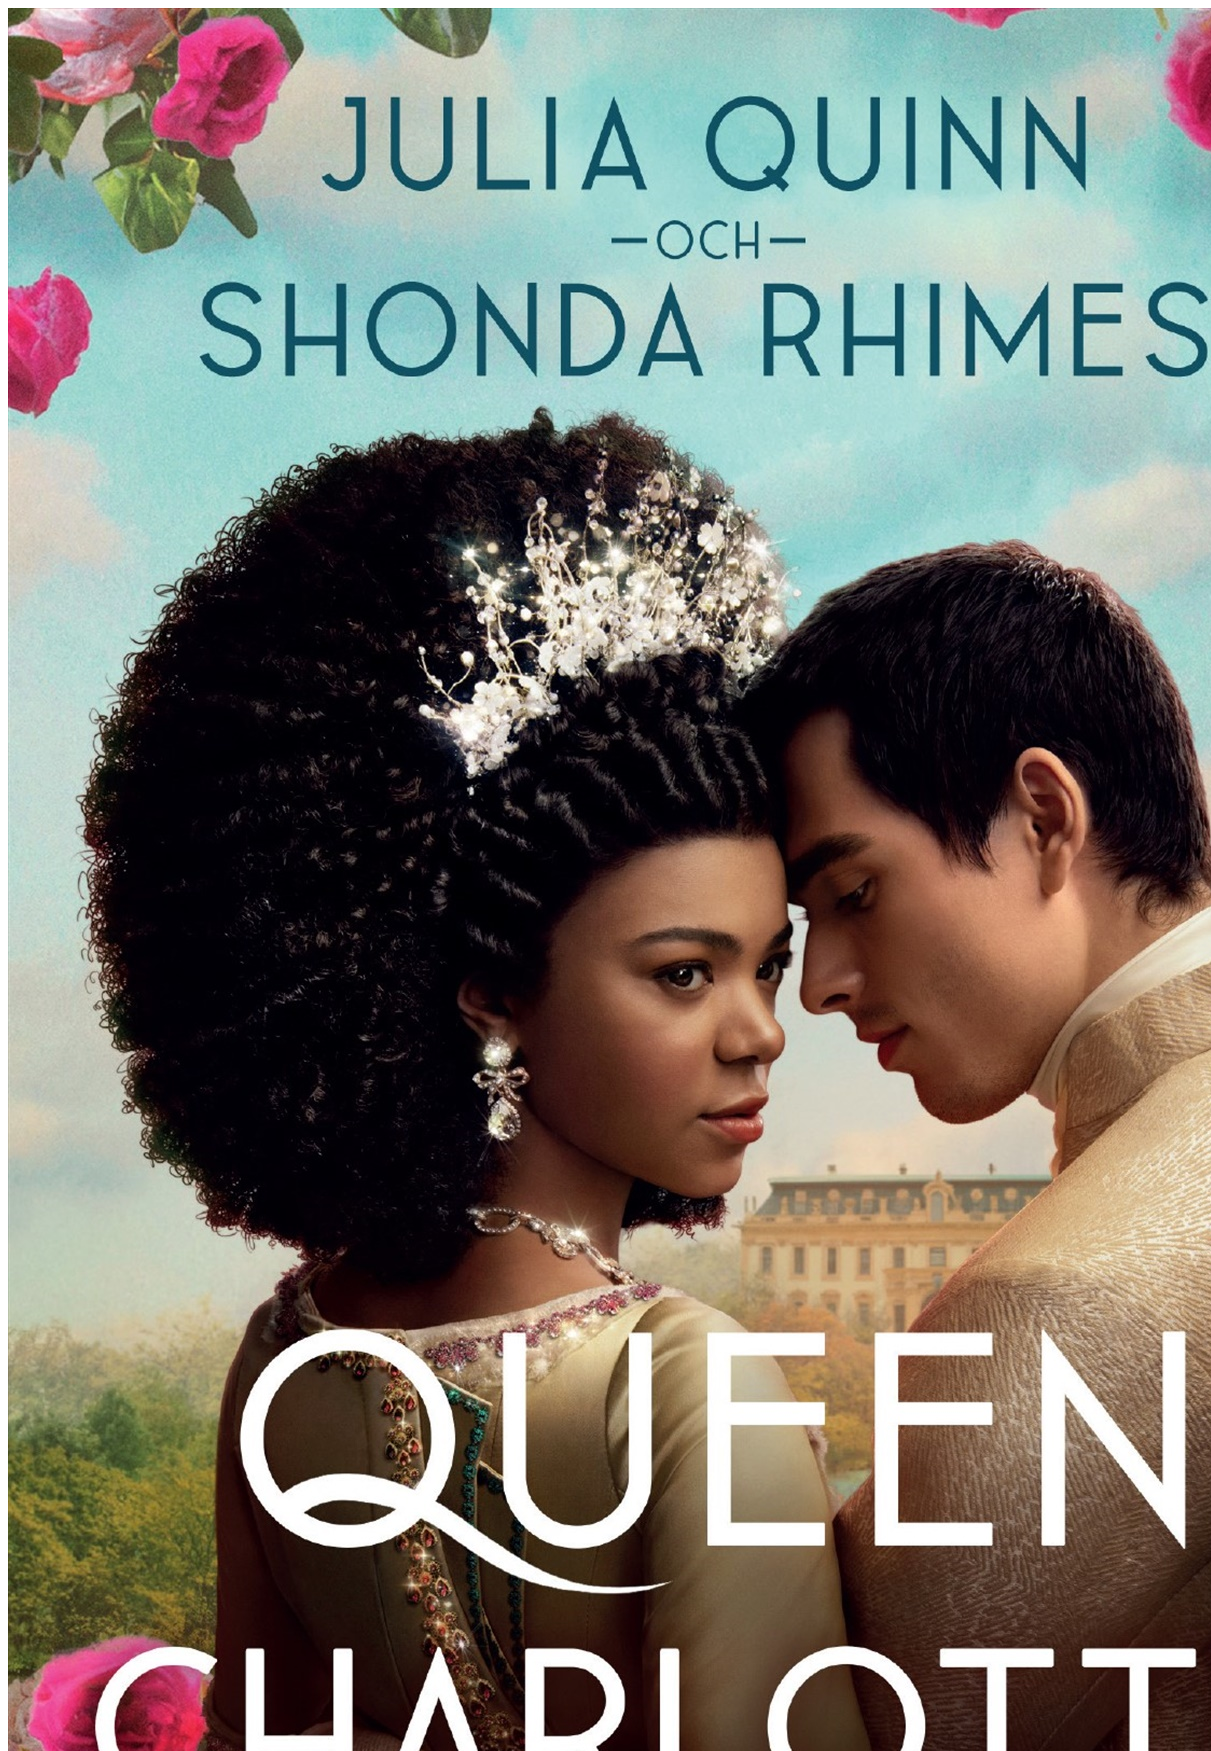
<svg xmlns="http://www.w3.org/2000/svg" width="1211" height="1751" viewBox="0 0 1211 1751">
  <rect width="100%" height="100%" fill="rgb(255,255,255)"/>
  <image x="8" y="8" width="1203" height="1743" href="pic1.png"/>
</svg>
